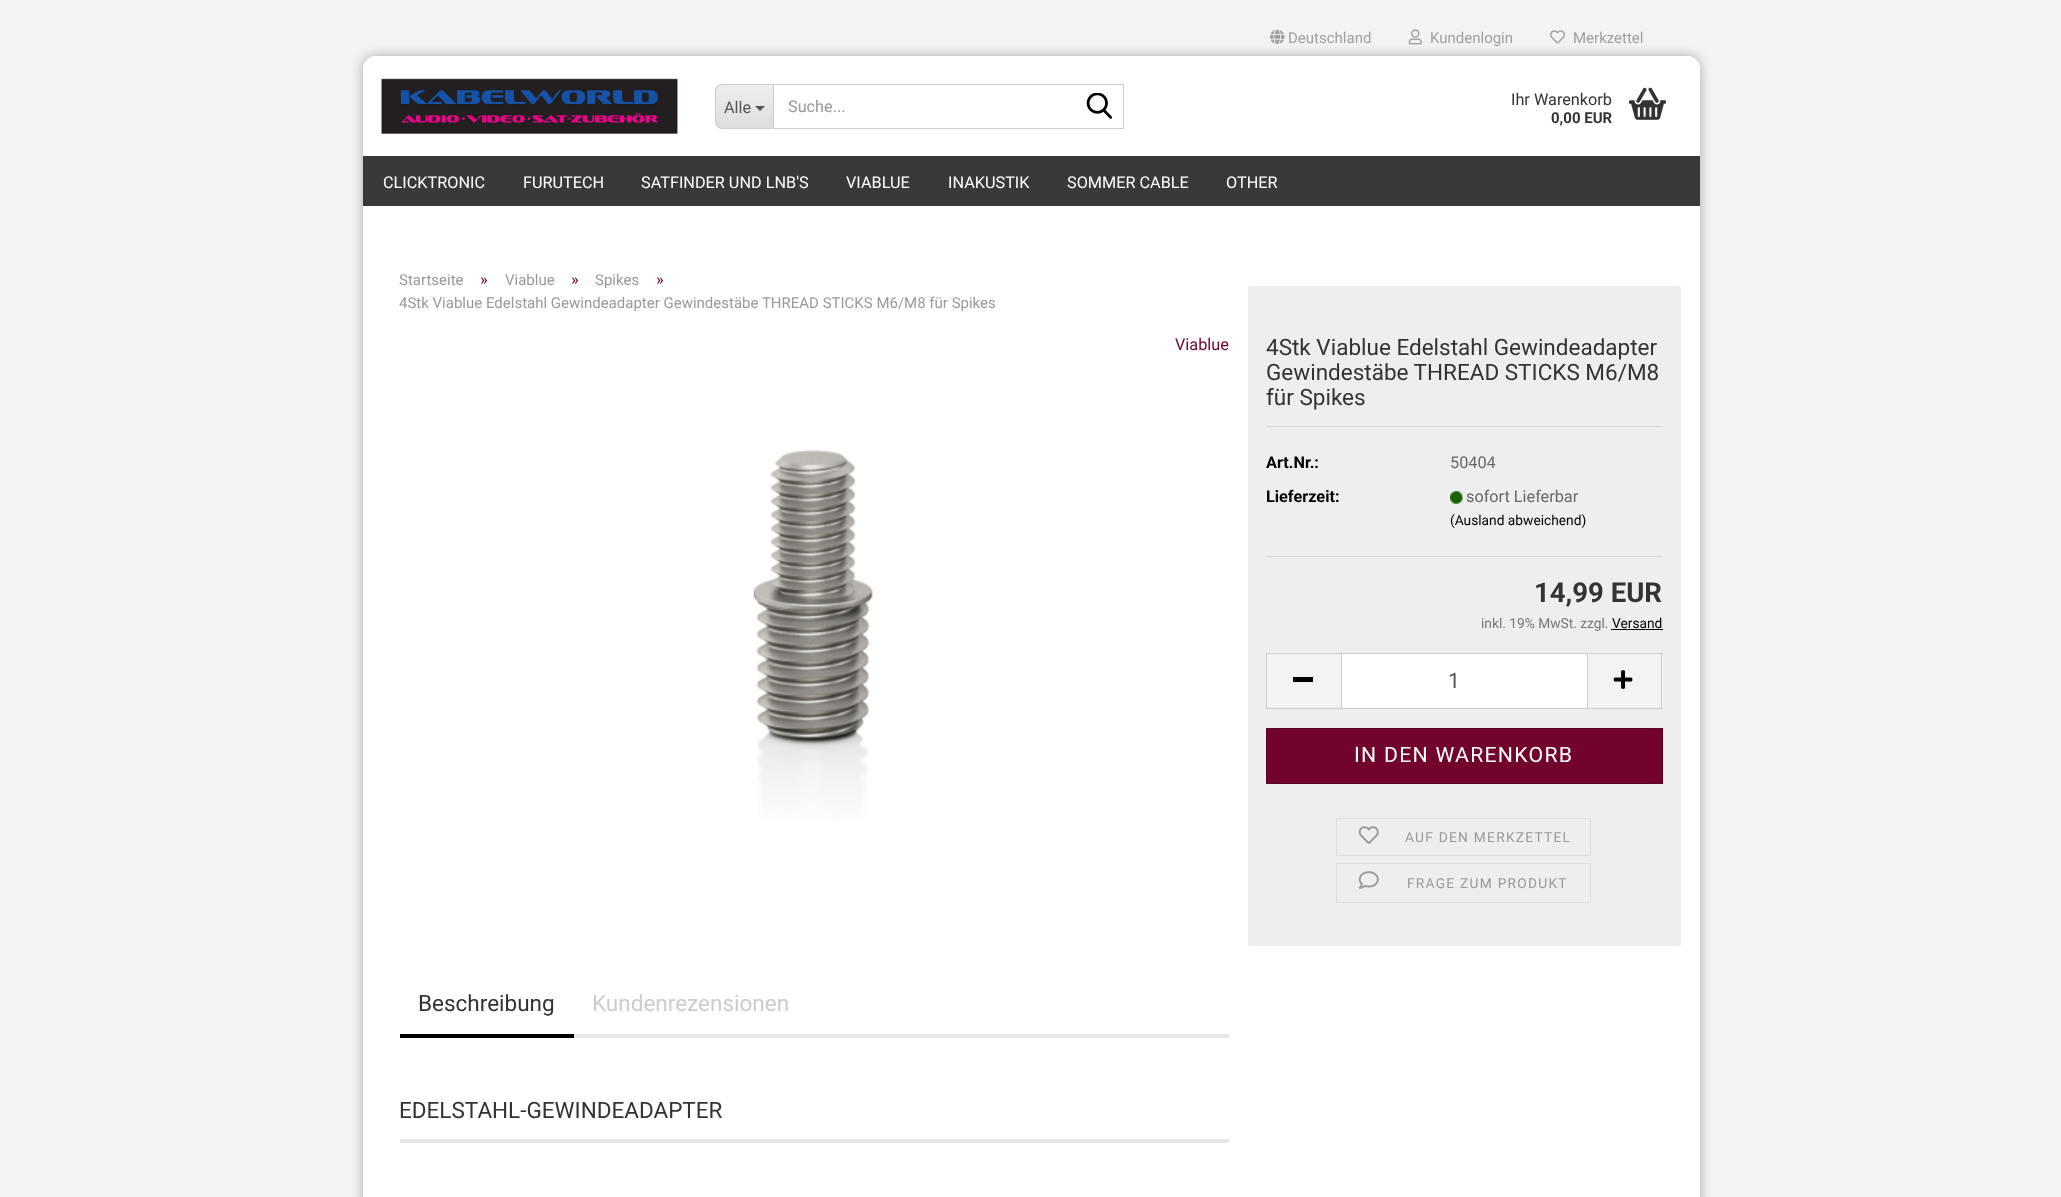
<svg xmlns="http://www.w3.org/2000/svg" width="2061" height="1197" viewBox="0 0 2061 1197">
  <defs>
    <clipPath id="clip1"><path d="M723 84H773V129H723C718.5 129 715 125.5 715 121V92C715 87.5 718.5 84 723 84Z"/></clipPath>
    <linearGradient id="g1" gradientUnits="userSpaceOnUse" x1="744" y1="85" x2="744" y2="128"><stop offset="0" stop-color="rgb(238,238,238)"/><stop offset="1" stop-color="rgb(222,222,222)"/></linearGradient>
  </defs>
  <rect width="100%" height="100%" fill="rgb(243,243,243)"/>
  <rect x="363" y="56" width="1337" height="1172" rx="13" fill="rgba(0,0,0,0.3)" filter="blur(6px)"/>
  <rect x="363" y="56" width="1337" height="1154" rx="13" fill="rgb(255,255,255)"/>
  <path d="M376 56H1687C1694 56 1700 62 1700 69V241.5C1700 243 1699 244 1697.5 244H365.5C364 244 363 243 363 241.5V69C363 62 369 56 376 56Z" fill="rgb(255,255,255)"/>
  <image x="1270" y="29" width="15" height="16" href="pic1.png"/>
  <text x="1288" y="43" font-family="Roboto" font-size="15" fill="rgb(159,159,159)">Deutschland</text>
  <image x="1408" y="29" width="14" height="16" href="pic2.png"/>
  <text x="1430" y="43" font-family="Roboto" font-size="15" fill="rgb(159,159,159)">Kundenlogin</text>
  <image x="1550" y="30" width="15" height="14" href="pic3.png"/>
  <text x="1573" y="43" font-family="Roboto" font-size="15" fill="rgb(159,159,159)">Merkzettel</text>
  <image x="381" y="78" width="297" height="56" href="pic4.png"/>
  <path d="M723 84H773V129H723C718.5 129 715 125.5 715 121V92C715 87.5 718.5 84 723 84Z" fill="rgb(243,243,243)"/>
  <g clip-path="url(#clip1)">
    <rect x="715" y="85" width="58" height="43" fill="url(#g1)"/>
  </g>
  <path d="M722 84H772V129H722C718 129 715 125 715 121V91C715 87 718 84 722 84ZM722 85H772V128H722C719 128 716 125 716 121V91C716 88 719 85 722 85Z" fill="rgb(204,204,204)" fill-rule="evenodd"/>
  <text x="724" y="113" font-family="Roboto" font-size="16.25" fill="rgb(85,85,85)">Alle</text>
  <path d="M755 106H765L760 111Z" fill="rgb(85,85,85)"/>
  <rect x="773.5" y="84.5" width="350" height="44" fill="none" stroke="rgb(204,204,204)"/>
  <text x="788" y="112" font-family="Roboto" font-size="16.25" fill="rgb(153,153,153)">Suche...</text>
  <image x="1086" y="93" width="26" height="26" href="pic5.png"/>
  <text x="1511" y="105" font-family="Roboto" font-size="16.25" fill="rgb(51,51,51)">Ihr Warenkorb</text>
  <text x="1551" y="123" font-family="Roboto" font-size="15" font-weight="bold" fill="rgb(51,51,51)">0,00 EUR</text>
  <image x="1629" y="87" width="37" height="33" href="pic6.png"/>
  <rect x="363" y="156" width="1337" height="50" fill="rgb(57,57,57)"/>
  <g font-family="Roboto" font-size="16.25" fill="rgb(255,255,255)">
    <text x="383" y="188">CLICKTRONIC</text>
    <text x="523" y="188">FURUTECH</text>
    <text x="641" y="188">SATFINDER UND LNB'S</text>
    <text x="846" y="188">VIABLUE</text>
    <text x="948" y="188">INAKUSTIK</text>
    <text x="1067" y="188">SOMMER CABLE</text>
    <text x="1226" y="188">OTHER</text>
  </g>
  <text x="399" y="285" font-family="Roboto" font-size="15" fill="rgb(153,153,153)">Startseite</text>
  <text x="480" y="285" font-family="Roboto" font-size="16.25" fill="rgb(113,3,45)">»</text>
  <text x="505" y="285" font-family="Roboto" font-size="15" fill="rgb(153,153,153)">Viablue</text>
  <text x="571" y="285" font-family="Roboto" font-size="16.25" fill="rgb(113,3,45)">»</text>
  <text x="595" y="285" font-family="Roboto" font-size="15" fill="rgb(153,153,153)">Spikes</text>
  <text x="656" y="285" font-family="Roboto" font-size="16.25" fill="rgb(113,3,45)">»</text>
  <text x="399" y="308" font-family="Roboto" font-size="15" fill="rgb(153,153,153)">4Stk Viablue Edelstahl Gewindeadapter Gewindestäbe THREAD STICKS M6/M8 für Spikes</text>
  <text x="1175" y="350" font-family="Roboto" font-size="16.25" fill="rgb(113,3,45)">Viablue</text>
  <image x="753" y="449" width="120" height="371" href="pic7.png"/>
  <rect x="1248" y="286" width="433" height="660" rx="2.5" fill="rgb(238,238,238)"/>
  <rect x="1266" y="426" width="397" height="1" fill="rgb(213,213,213)"/>
  <g font-family="Roboto" font-size="22.5" fill="rgb(51,51,51)">
    <text>
      <tspan x="1266" y="355">4Stk Viablue Edelstahl Gewindeadapter</tspan>
      <tspan x="1266" y="380">Gewindestäbe THREAD STICKS M6/M8</tspan>
      <tspan x="1266" y="405">für Spikes</tspan>
    </text>
  </g>
  <rect x="1266" y="556" width="397" height="1" fill="rgb(213,213,213)"/>
  <text x="1266" y="468" font-family="Roboto" font-size="16.25" font-weight="bold" fill="rgb(0,0,0)">Art.Nr.:</text>
  <text x="1450" y="468" font-family="Roboto" font-size="16.25" fill="rgb(102,102,102)">50404</text>
  <text x="1266" y="502" font-family="Roboto" font-size="16.25" font-weight="bold" fill="rgb(0,0,0)">Lieferzeit:</text>
  <image x="1450" y="491" width="13" height="13" href="pic8.png"/>
  <text x="1466" y="502" font-family="Roboto" font-size="16.25" fill="rgb(102,102,102)">sofort Lieferbar</text>
  <text x="1450" y="525" font-family="Roboto" font-size="13.75" fill="rgb(0,0,0)">(Ausland abweichend)</text>
  <text x="1534" y="602" font-family="Roboto" font-size="27.5" font-weight="bold" fill="rgb(51,51,51)">14,99 EUR</text>
  <text x="1481" y="628" font-family="Roboto" font-size="13.75" fill="rgb(119,119,119)">inkl. 19% MwSt. zzgl.</text>
  <text x="1612" y="628" font-family="Roboto" font-size="13.75" fill="rgb(0,0,0)">Versand</text>
  <rect x="1611" y="629" width="52" height="1" fill="rgb(0,0,0)"/>
  <rect x="1267" y="654" width="74" height="54" fill="rgb(243,243,243)"/>
  <rect x="1266" y="653" width="75" height="1" fill="rgb(204,204,204)"/>
  <rect x="1266" y="708" width="75" height="1" fill="rgb(204,204,204)"/>
  <rect x="1266" y="653" width="1" height="56" fill="rgb(204,204,204)"/>
  <rect x="1293" y="677" width="20" height="5" fill="rgb(0,0,0)"/>
  <rect x="1341.5" y="653.5" width="246" height="55" fill="rgb(255,255,255)" stroke="rgb(204,204,204)"/>
  <text x="1448" y="688" font-family="Roboto" font-size="21.25" fill="rgb(85,85,85)">1</text>
  <rect x="1588" y="654" width="75" height="54" fill="rgb(243,243,243)"/>
  <rect x="1588" y="653" width="75" height="1" fill="rgb(204,204,204)"/>
  <rect x="1661" y="653" width="1" height="56" fill="rgb(204,204,204)"/>
  <rect x="1588" y="708" width="75" height="1" fill="rgb(204,204,204)"/>
  <image x="1613" y="670" width="20" height="19" href="pic9.png"/>
  <rect x="1266.5" y="728.5" width="396" height="55" fill="rgb(113,3,45)" stroke="rgb(88,2,35)"/>
  <text x="1354" y="762" font-family="Roboto" font-size="21.25" letter-spacing="1.25" fill="rgb(255,255,255)">IN DEN WARENKORB</text>
  <rect x="1336.5" y="818.5" width="254" height="37" fill="none" stroke="rgb(221,221,221)"/>
  <image x="1358" y="826" width="21" height="18" href="pic10.png"/>
  <text x="1405" y="842" font-family="Roboto" font-size="13.75" letter-spacing="1.25" fill="rgb(153,153,153)">AUF DEN MERKZETTEL</text>
  <rect x="1336.5" y="863.5" width="254" height="39" fill="none" stroke="rgb(221,221,221)"/>
  <image x="1358" y="871" width="21" height="18" href="pic11.png"/>
  <text x="1407" y="888" font-family="Roboto" font-size="13.75" letter-spacing="1.25" fill="rgb(153,153,153)">FRAGE ZUM PRODUKT</text>
  <rect x="574" y="1034" width="655" height="4" fill="rgb(231,231,231)"/>
  <rect x="400" y="1034" width="174" height="4" fill="rgb(0,0,0)"/>
  <text x="418" y="1011" font-family="Roboto" font-size="22.5" fill="rgb(51,51,51)">Beschreibung</text>
  <text x="592" y="1011" font-family="Roboto" font-size="22.5" fill="rgb(204,204,204)">Kundenrezensionen</text>
  <rect x="400" y="1139" width="829" height="4" fill="rgb(231,231,231)"/>
  <text x="399" y="1118" font-family="Roboto" font-size="22.5" fill="rgb(51,51,51)">EDELSTAHL-GEWINDEADAPTER</text>
</svg>
